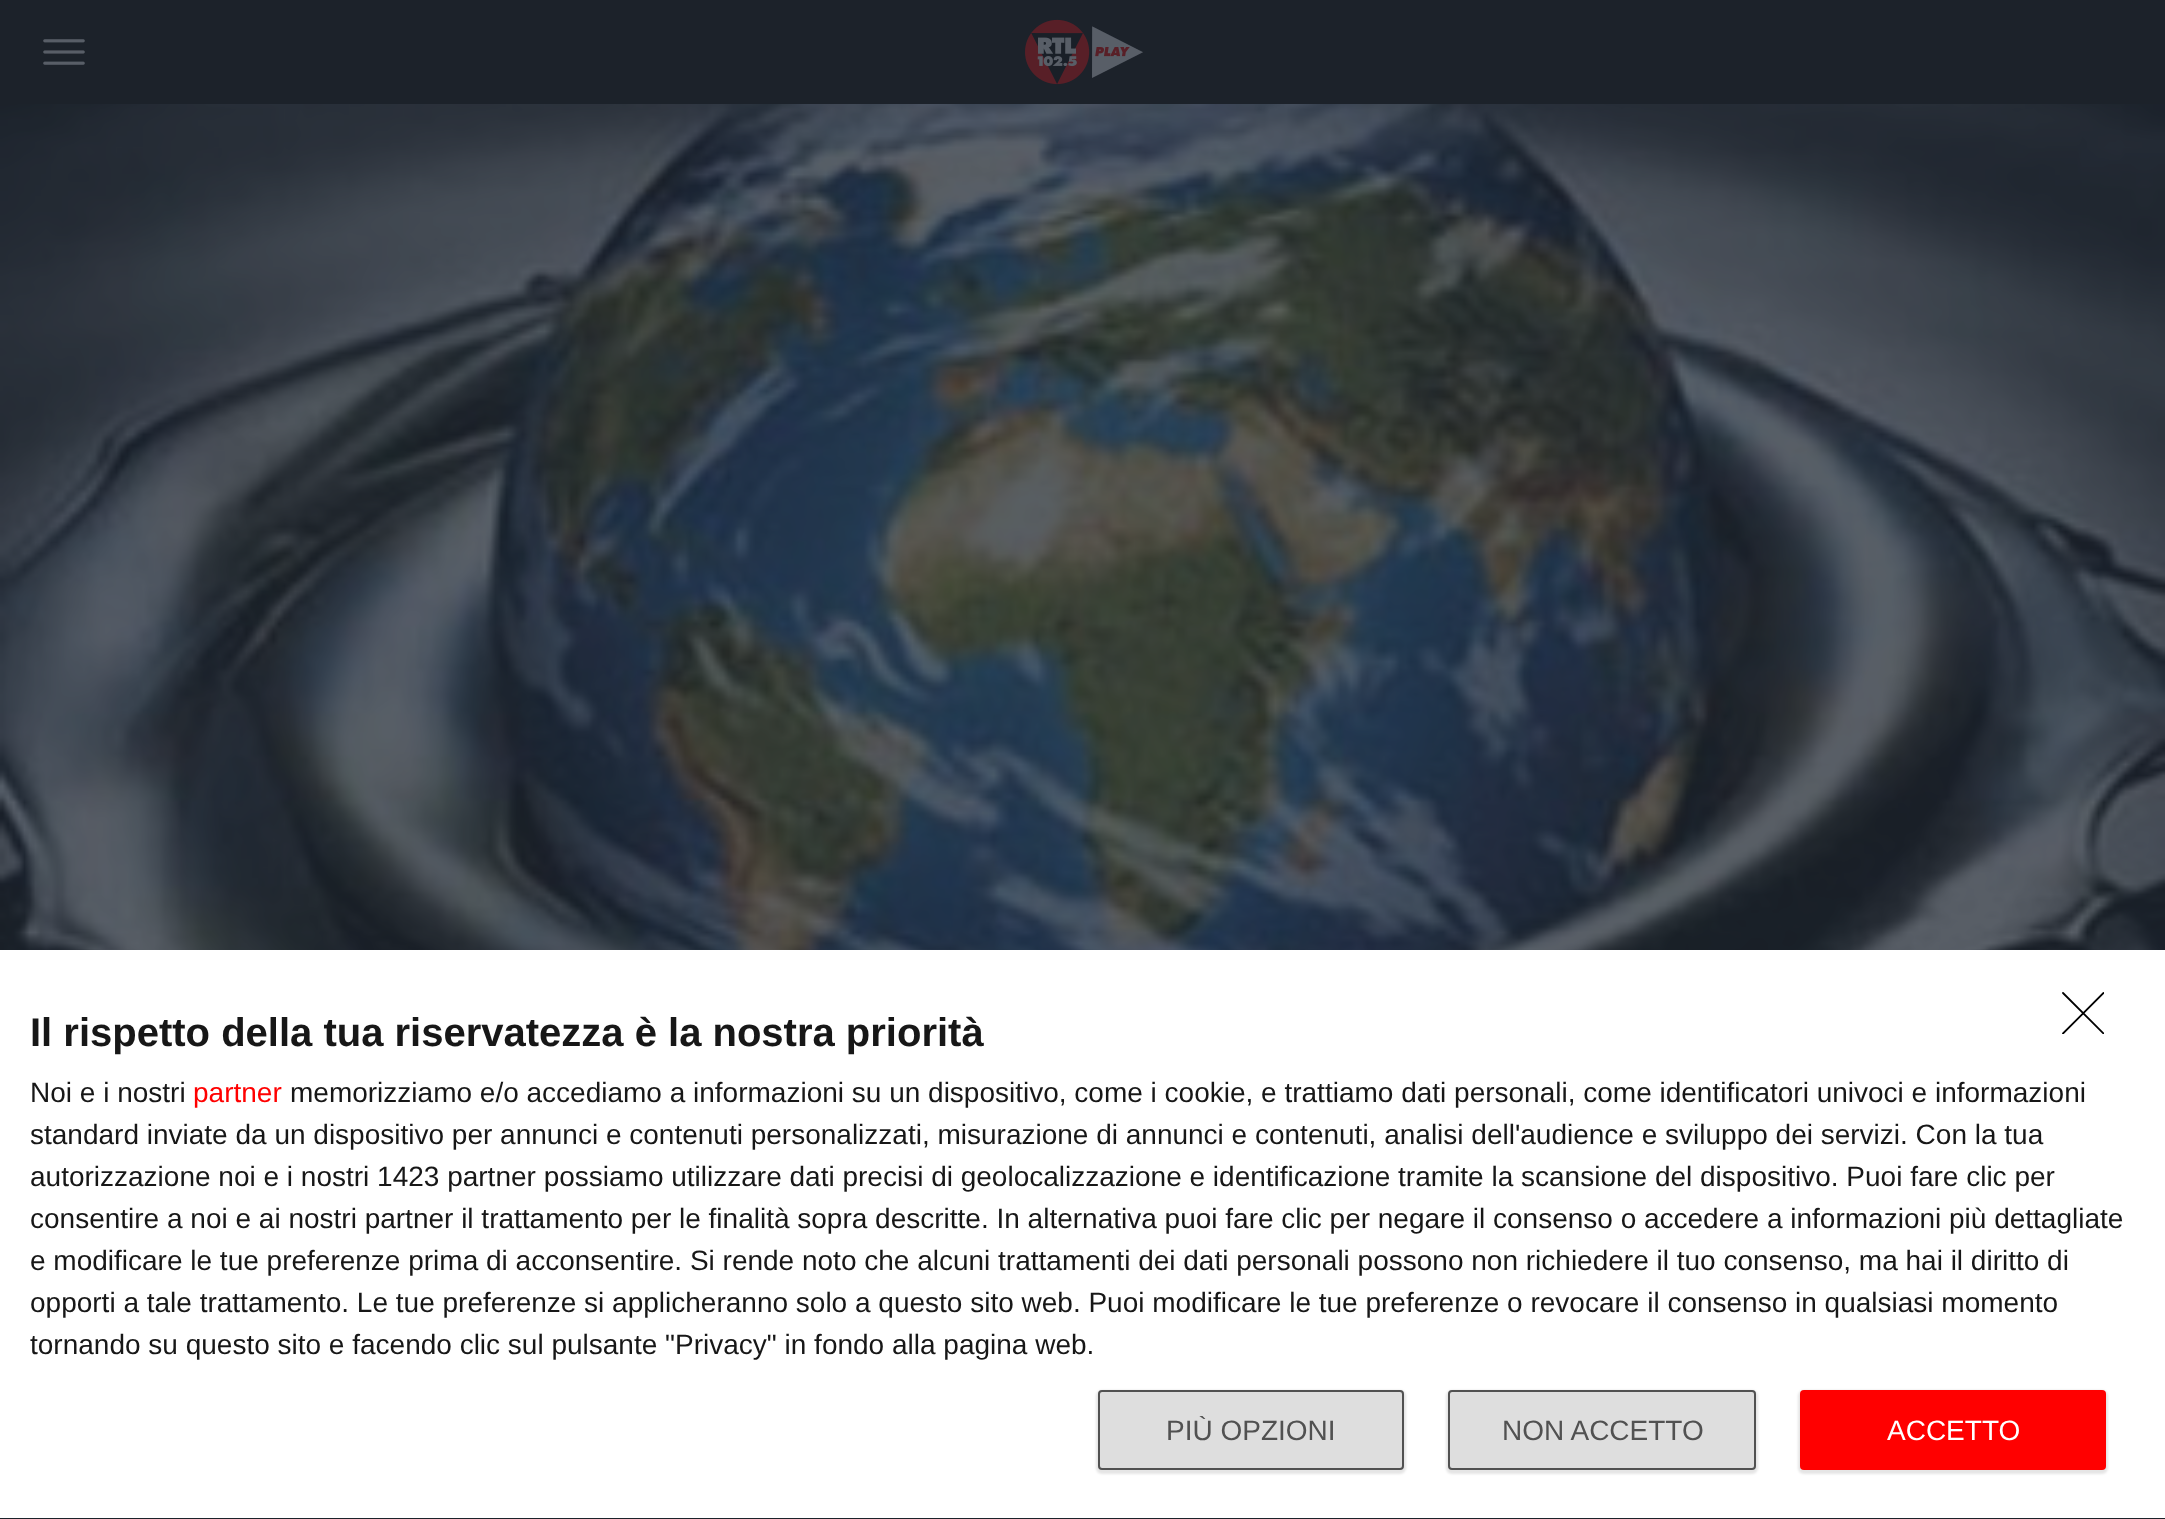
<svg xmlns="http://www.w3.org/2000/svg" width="2165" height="1519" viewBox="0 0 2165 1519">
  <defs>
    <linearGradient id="g1" gradientUnits="userSpaceOnUse" x1="1083" y1="0" x2="1083" y2="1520"><stop offset="0" stop-color="rgb(43,31,39)"/><stop offset="1" stop-color="rgb(28,34,42)"/></linearGradient>
    <clipPath id="clip1"><rect x="2062" y="992" width="42" height="42"/></clipPath>
    <clipPath id="clip2"><rect x="1166" y="1416" width="170" height="28"/></clipPath>
  </defs>
  <rect width="100%" height="100%" fill="rgb(255,255,255)"/>
  <rect x="0" y="1518" width="2165" height="1" fill="url(#g1)"/>
  <rect x="0" y="0" width="2165" height="104" fill="rgb(28,34,42)"/>
  <image x="43" y="39" width="42" height="26" href="pic1.png"/>
  <image x="1025" y="19" width="118" height="66" href="pic2.png"/>
  <image x="0" y="104" width="2165" height="846" href="pic3.png"/>
  <g clip-path="url(#clip1)">
    <path d="M2063 993L2103.5 1033.5M2103.5 993L2063 1033.5" fill="none" stroke="rgb(0,0,0)" stroke-width="1.8" stroke-linecap="round" stroke-linejoin="round"/>
  </g>
  <text x="30" y="1046" font-family="Liberation Sans" font-size="40" font-weight="bold" fill="rgb(23,23,23)">Il rispetto della tua riservatezza è la nostra priorità</text>
  <text x="30" y="1102" font-family="Liberation Sans" font-size="28" fill="rgb(23,23,23)">Noi e i nostri</text>
  <text x="193" y="1102" font-family="Liberation Sans" font-size="28" fill="rgb(255,0,0)">partner</text>
  <g font-family="Liberation Sans" font-size="28" fill="rgb(23,23,23)">
    <text x="290" y="1102">memorizziamo e/o accediamo a informazioni su un dispositivo, come i cookie, e trattiamo dati personali, come identificatori univoci e informazioni</text>
    <text>
      <tspan x="30" y="1144">standard inviate da un dispositivo per annunci e contenuti personalizzati, misurazione di annunci e contenuti, analisi dell'audience e sviluppo dei servizi. Con la tua</tspan>
      <tspan x="30" y="1186">autorizzazione noi e i nostri 1423 partner possiamo utilizzare dati precisi di geolocalizzazione e identificazione tramite la scansione del dispositivo. Puoi fare clic per</tspan>
      <tspan x="30" y="1228">consentire a noi e ai nostri partner il trattamento per le finalità sopra descritte. In alternativa puoi fare clic per negare il consenso o accedere a informazioni più dettagliate</tspan>
      <tspan x="30" y="1270">e modificare le tue preferenze prima di acconsentire. Si rende noto che alcuni trattamenti dei dati personali possono non richiedere il tuo consenso, ma hai il diritto di</tspan>
      <tspan x="30" y="1312">opporti a tale trattamento. Le tue preferenze si applicheranno solo a questo sito web. Puoi modificare le tue preferenze o revocare il consenso in qualsiasi momento</tspan>
      <tspan x="30" y="1354">tornando su questo sito e facendo clic sul pulsante "Privacy" in fondo alla pagina web.</tspan>
    </text>
  </g>
  <rect x="1096" y="1390" width="310" height="84" rx="6" fill="rgba(0,0,0,0.1)" filter="blur(1px)"/>
  <rect x="1099" y="1391" width="304" height="78" rx="3" fill="rgb(222,222,222)" stroke="rgb(81,81,81)" stroke-width="2"/>
  <g clip-path="url(#clip2)">
    <text x="1166" y="1440" font-family="Liberation Sans" font-size="28" fill="rgb(81,81,81)">PIÙ OPZIONI</text>
  </g>
  <rect x="1446" y="1390" width="312" height="84" rx="6" fill="rgba(0,0,0,0.1)" filter="blur(1px)"/>
  <rect x="1449" y="1391" width="306" height="78" rx="3" fill="rgb(222,222,222)" stroke="rgb(81,81,81)" stroke-width="2"/>
  <text x="1502" y="1440" font-family="Liberation Sans" font-size="28" fill="rgb(81,81,81)">NON ACCETTO</text>
  <rect x="1798" y="1390" width="310" height="84" rx="6" fill="rgba(0,0,0,0.1)" filter="blur(1px)"/>
  <rect x="1800" y="1390" width="306" height="80" rx="4" fill="rgb(255,0,0)"/>
  <text x="1887" y="1440" font-family="Liberation Sans" font-size="28" fill="rgb(255,255,255)">ACCETTO</text>
</svg>
